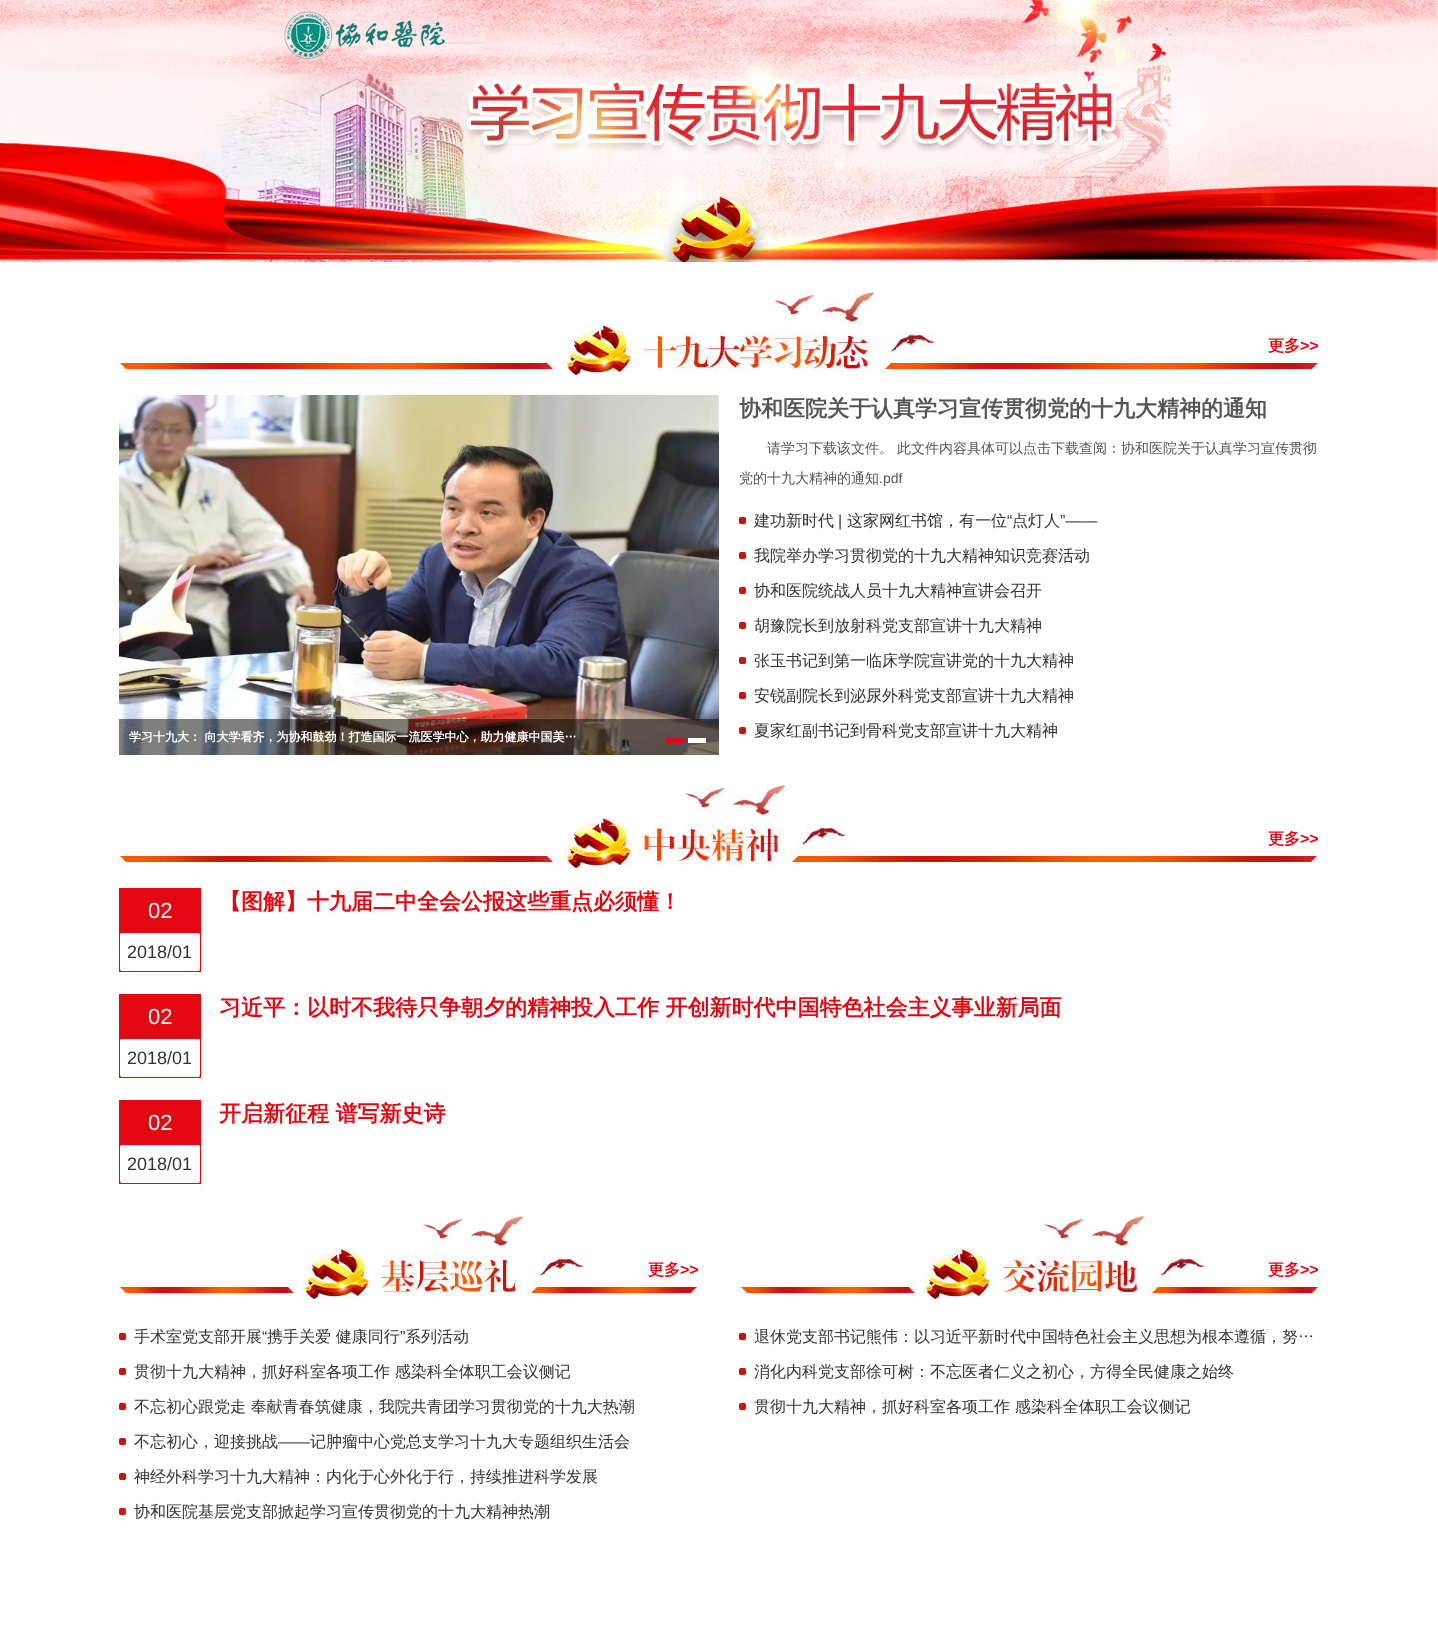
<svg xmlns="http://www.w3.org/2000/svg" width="1438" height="1651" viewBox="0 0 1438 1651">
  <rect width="100%" height="100%" fill="rgb(255,255,255)"/>
  <image x="0" y="0" width="1438" height="262" href="pic1.png"/>
  <image x="119" y="292" width="1200" height="83" href="pic2.png"/>
  <text x="1268" y="351" font-family="WenQuanYi Zen Hei" font-size="16" font-weight="bold" fill="rgb(228,7,18)">更多</text>
  <text x="1300" y="351" font-family="Liberation Sans" font-size="16" font-weight="bold" fill="rgb(228,7,18)">&gt;&gt;</text>
  <image x="119" y="395" width="600" height="360" href="pic3.png"/>
  <rect x="119" y="719" width="600" height="36" fill="rgba(0,0,0,0.5)"/>
  <text x="129" y="741" font-family="WenQuanYi Zen Hei" font-size="12" font-weight="bold" fill="rgb(255,255,255)">学习十九大： 向大学看齐，为协和鼓劲！打造国际一流医学中心，助力健康中国美…</text>
  <rect x="665" y="738" width="18" height="5" fill="rgb(228,7,18)"/>
  <rect x="688" y="738" width="18" height="5" fill="rgb(255,255,255)"/>
  <text x="739" y="416" font-family="WenQuanYi Zen Hei" font-size="22" font-weight="bold" fill="rgb(85,85,85)">协和医院关于认真学习宣传贯彻党的十九大精神的通知</text>
  <g font-family="WenQuanYi Zen Hei" font-size="14" font-weight="500" fill="rgb(85,85,85)">
    <text x="767" y="453">请学习下载该文件。</text>
    <text x="897" y="453">此文件内容具体可以点击下载查阅：协和医院关于认真学习宣传贯彻</text>
    <text x="739" y="483">党的十九大精神的通知</text>
  </g>
  <text x="879" y="483" font-family="Liberation Sans" font-size="14" fill="rgb(85,85,85)">.pdf</text>
  <image x="739" y="517" width="7" height="7" href="pic4.png"/>
  <text x="754" y="526" font-family="WenQuanYi Zen Hei" font-size="16" font-weight="500" fill="rgb(51,51,51)">建功新时代</text>
  <text x="838" y="526" font-family="Liberation Sans" font-size="16" fill="rgb(51,51,51)">|</text>
  <text x="847" y="526" font-family="WenQuanYi Zen Hei" font-size="16" font-weight="500" fill="rgb(51,51,51)">这家网红书馆，有一位</text>
  <text x="1007" y="526" font-family="Liberation Sans" font-size="16" fill="rgb(51,51,51)">“</text>
  <text x="1012" y="526" font-family="WenQuanYi Zen Hei" font-size="16" font-weight="500" fill="rgb(51,51,51)">点灯人</text>
  <text x="1060" y="526" font-family="Liberation Sans" font-size="16" fill="rgb(51,51,51)">”——</text>
  <image x="739" y="552" width="7" height="7" href="pic4.png"/>
  <text x="754" y="561" font-family="WenQuanYi Zen Hei" font-size="16" font-weight="500" fill="rgb(51,51,51)">我院举办学习贯彻党的十九大精神知识竞赛活动</text>
  <image x="739" y="587" width="7" height="7" href="pic4.png"/>
  <text x="754" y="596" font-family="WenQuanYi Zen Hei" font-size="16" font-weight="500" fill="rgb(51,51,51)">协和医院统战人员十九大精神宣讲会召开</text>
  <image x="739" y="622" width="7" height="7" href="pic4.png"/>
  <text x="754" y="631" font-family="WenQuanYi Zen Hei" font-size="16" font-weight="500" fill="rgb(51,51,51)">胡豫院长到放射科党支部宣讲十九大精神</text>
  <image x="739" y="657" width="7" height="7" href="pic4.png"/>
  <text x="754" y="666" font-family="WenQuanYi Zen Hei" font-size="16" font-weight="500" fill="rgb(51,51,51)">张玉书记到第一临床学院宣讲党的十九大精神</text>
  <image x="739" y="692" width="7" height="7" href="pic4.png"/>
  <text x="754" y="701" font-family="WenQuanYi Zen Hei" font-size="16" font-weight="500" fill="rgb(51,51,51)">安锐副院长到泌尿外科党支部宣讲十九大精神</text>
  <image x="739" y="727" width="7" height="7" href="pic4.png"/>
  <text x="754" y="736" font-family="WenQuanYi Zen Hei" font-size="16" font-weight="500" fill="rgb(51,51,51)">夏家红副书记到骨科党支部宣讲十九大精神</text>
  <image x="119" y="785" width="1200" height="83" href="pic5.png"/>
  <text x="1268" y="844" font-family="WenQuanYi Zen Hei" font-size="16" font-weight="bold" fill="rgb(228,7,18)">更多</text>
  <text x="1300" y="844" font-family="Liberation Sans" font-size="16" font-weight="bold" fill="rgb(228,7,18)">&gt;&gt;</text>
  <rect x="119" y="888" width="82" height="84" fill="rgb(228,7,18)"/>
  <text x="148" y="918" font-family="Liberation Sans" font-size="22" fill="rgb(255,255,255)">02</text>
  <rect x="120" y="933" width="80" height="38" rx="2" fill="rgb(255,255,255)"/>
  <text x="127" y="958" font-family="Liberation Sans" font-size="18" fill="rgb(51,51,51)">2018/01</text>
  <text x="219" y="909" font-family="WenQuanYi Zen Hei" font-size="22" font-weight="bold" fill="rgb(228,7,18)">【图解】十九届二中全会公报这些重点必须懂！</text>
  <rect x="119" y="994" width="82" height="84" fill="rgb(228,7,18)"/>
  <text x="148" y="1024" font-family="Liberation Sans" font-size="22" fill="rgb(255,255,255)">02</text>
  <rect x="120" y="1039" width="80" height="38" rx="2" fill="rgb(255,255,255)"/>
  <text x="127" y="1064" font-family="Liberation Sans" font-size="18" fill="rgb(51,51,51)">2018/01</text>
  <text x="219" y="1015" font-family="WenQuanYi Zen Hei" font-size="22" font-weight="bold" fill="rgb(228,7,18)">习近平：以时不我待只争朝夕的精神投入工作 开创新时代中国特色社会主义事业新局面</text>
  <rect x="119" y="1100" width="82" height="84" fill="rgb(228,7,18)"/>
  <text x="148" y="1130" font-family="Liberation Sans" font-size="22" fill="rgb(255,255,255)">02</text>
  <rect x="120" y="1145" width="80" height="38" rx="2" fill="rgb(255,255,255)"/>
  <text x="127" y="1170" font-family="Liberation Sans" font-size="18" fill="rgb(51,51,51)">2018/01</text>
  <text x="219" y="1121" font-family="WenQuanYi Zen Hei" font-size="22" font-weight="bold" fill="rgb(228,7,18)">开启新征程 谱写新史诗</text>
  <image x="119" y="1216" width="580" height="83" href="pic6.png"/>
  <text x="648" y="1275" font-family="WenQuanYi Zen Hei" font-size="16" font-weight="bold" fill="rgb(228,7,18)">更多</text>
  <text x="680" y="1275" font-family="Liberation Sans" font-size="16" font-weight="bold" fill="rgb(228,7,18)">&gt;&gt;</text>
  <image x="119" y="1333" width="7" height="7" href="pic4.png"/>
  <text x="134" y="1342" font-family="WenQuanYi Zen Hei" font-size="16" font-weight="500" fill="rgb(51,51,51)">手术室党支部开展</text>
  <text x="262" y="1342" font-family="Liberation Sans" font-size="16" fill="rgb(51,51,51)">“</text>
  <text x="267" y="1342" font-family="WenQuanYi Zen Hei" font-size="16" font-weight="500" fill="rgb(51,51,51)">携手关爱 健康同行</text>
  <text x="400" y="1342" font-family="Liberation Sans" font-size="16" fill="rgb(51,51,51)">”</text>
  <text x="405" y="1342" font-family="WenQuanYi Zen Hei" font-size="16" font-weight="500" fill="rgb(51,51,51)">系列活动</text>
  <image x="119" y="1368" width="7" height="7" href="pic4.png"/>
  <text x="134" y="1377" font-family="WenQuanYi Zen Hei" font-size="16" font-weight="500" fill="rgb(51,51,51)">贯彻十九大精神，抓好科室各项工作 感染科全体职工会议侧记</text>
  <image x="119" y="1403" width="7" height="7" href="pic4.png"/>
  <text x="134" y="1412" font-family="WenQuanYi Zen Hei" font-size="16" font-weight="500" fill="rgb(51,51,51)">不忘初心跟党走 奉献青春筑健康，我院共青团学习贯彻党的十九大热潮</text>
  <image x="119" y="1438" width="7" height="7" href="pic4.png"/>
  <text x="134" y="1447" font-family="WenQuanYi Zen Hei" font-size="16" font-weight="500" fill="rgb(51,51,51)">不忘初心，迎接挑战</text>
  <text x="278" y="1447" font-family="Liberation Sans" font-size="16" fill="rgb(51,51,51)">——</text>
  <text x="310" y="1447" font-family="WenQuanYi Zen Hei" font-size="16" font-weight="500" fill="rgb(51,51,51)">记肿瘤中心党总支学习十九大专题组织生活会</text>
  <image x="119" y="1473" width="7" height="7" href="pic4.png"/>
  <text x="134" y="1482" font-family="WenQuanYi Zen Hei" font-size="16" font-weight="500" fill="rgb(51,51,51)">神经外科学习十九大精神：内化于心外化于行，持续推进科学发展</text>
  <image x="119" y="1508" width="7" height="7" href="pic4.png"/>
  <text x="134" y="1517" font-family="WenQuanYi Zen Hei" font-size="16" font-weight="500" fill="rgb(51,51,51)">协和医院基层党支部掀起学习宣传贯彻党的十九大精神热潮</text>
  <image x="739" y="1216" width="580" height="83" href="pic7.png"/>
  <text x="1268" y="1275" font-family="WenQuanYi Zen Hei" font-size="16" font-weight="bold" fill="rgb(228,7,18)">更多</text>
  <text x="1300" y="1275" font-family="Liberation Sans" font-size="16" font-weight="bold" fill="rgb(228,7,18)">&gt;&gt;</text>
  <image x="739" y="1333" width="7" height="7" href="pic4.png"/>
  <text x="754" y="1342" font-family="WenQuanYi Zen Hei" font-size="16" font-weight="500" fill="rgb(51,51,51)">退休党支部书记熊伟：以习近平新时代中国特色社会主义思想为根本遵循，努…</text>
  <image x="739" y="1368" width="7" height="7" href="pic4.png"/>
  <text x="754" y="1377" font-family="WenQuanYi Zen Hei" font-size="16" font-weight="500" fill="rgb(51,51,51)">消化内科党支部徐可树：不忘医者仁义之初心，方得全民健康之始终</text>
  <image x="739" y="1403" width="7" height="7" href="pic4.png"/>
  <text x="754" y="1412" font-family="WenQuanYi Zen Hei" font-size="16" font-weight="500" fill="rgb(51,51,51)">贯彻十九大精神，抓好科室各项工作 感染科全体职工会议侧记</text>
</svg>
